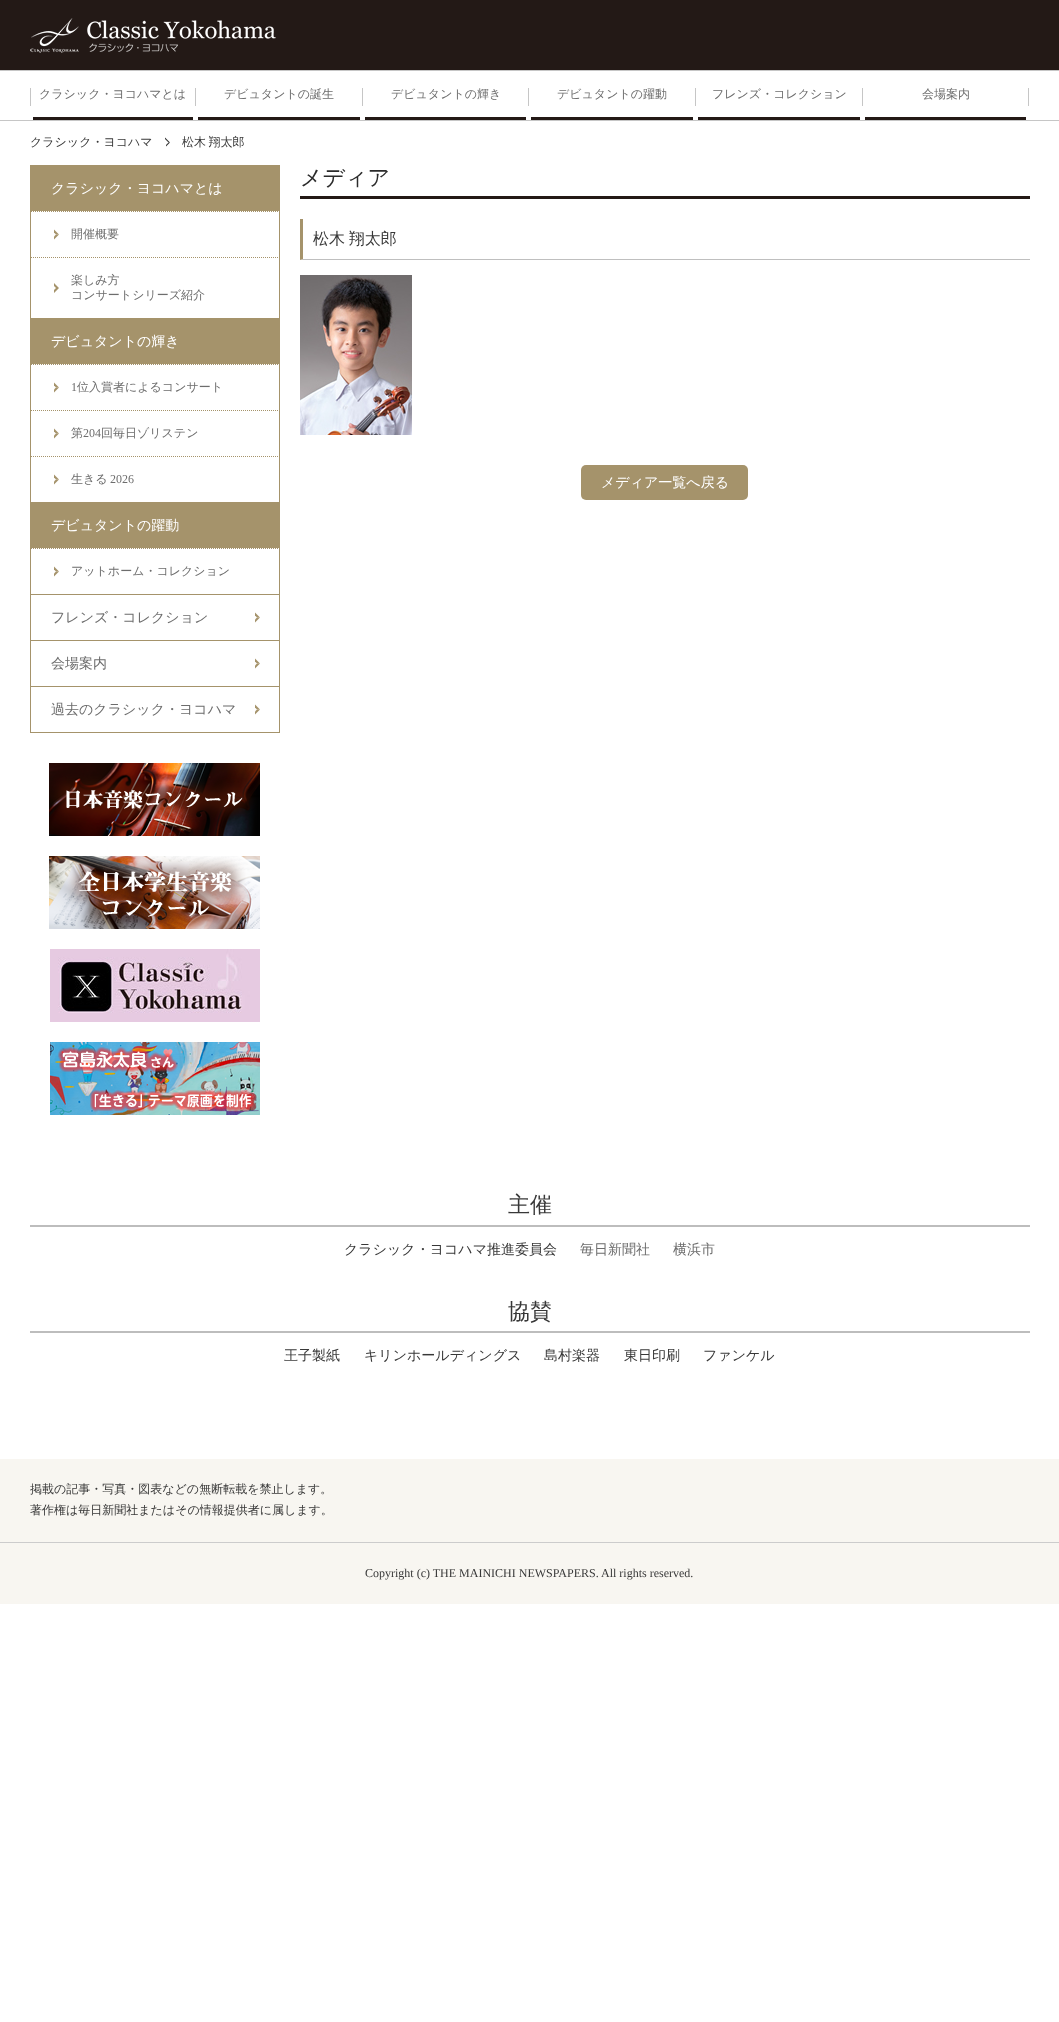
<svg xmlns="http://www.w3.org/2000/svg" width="1059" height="2022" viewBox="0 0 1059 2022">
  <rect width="100%" height="100%" fill="rgb(255,255,255)"/>
  <rect x="0" y="0" width="1059" height="70" fill="rgb(35,25,22)"/>
  <image x="30" y="18" width="246" height="35" href="pic1.png"/>
  <rect x="0" y="70" width="1059" height="1" fill="rgb(198,198,198)"/>
  <rect x="0" y="120" width="1059" height="1" fill="rgb(198,198,198)"/>
  <rect x="30" y="88" width="1" height="18" fill="rgb(198,198,198)"/>
  <rect x="33" y="117" width="160" height="3" fill="rgb(35,25,22)"/>
  <text x="39" y="98" font-family="WenQuanYi Zen Hei" font-size="12" font-weight="500" fill="rgb(109,109,109)">クラシック・ヨコハマとは</text>
  <rect x="195" y="88" width="1" height="18" fill="rgb(198,198,198)"/>
  <rect x="198" y="117" width="162" height="3" fill="rgb(35,25,22)"/>
  <text x="224" y="98" font-family="WenQuanYi Zen Hei" font-size="12" font-weight="500" fill="rgb(109,109,109)">デビュタントの誕生</text>
  <rect x="362" y="88" width="1" height="18" fill="rgb(198,198,198)"/>
  <rect x="365" y="117" width="161" height="3" fill="rgb(35,25,22)"/>
  <text x="391" y="98" font-family="WenQuanYi Zen Hei" font-size="12" font-weight="500" fill="rgb(109,109,109)">デビュタントの輝き</text>
  <rect x="528" y="88" width="1" height="18" fill="rgb(198,198,198)"/>
  <rect x="531" y="117" width="162" height="3" fill="rgb(35,25,22)"/>
  <text x="557" y="98" font-family="WenQuanYi Zen Hei" font-size="12" font-weight="500" fill="rgb(109,109,109)">デビュタントの躍動</text>
  <rect x="695" y="88" width="1" height="18" fill="rgb(198,198,198)"/>
  <rect x="698" y="117" width="162" height="3" fill="rgb(35,25,22)"/>
  <text x="712" y="98" font-family="WenQuanYi Zen Hei" font-size="12" font-weight="500" fill="rgb(109,109,109)">フレンズ・コレクション</text>
  <rect x="862" y="88" width="1" height="18" fill="rgb(198,198,198)"/>
  <rect x="865" y="117" width="161" height="3" fill="rgb(35,25,22)"/>
  <text x="922" y="98" font-family="WenQuanYi Zen Hei" font-size="12" font-weight="500" fill="rgb(109,109,109)">会場案内</text>
  <rect x="1028" y="88" width="1" height="18" fill="rgb(198,198,198)"/>
  <text x="30" y="146" font-family="WenQuanYi Zen Hei" font-size="12" font-weight="500" fill="rgb(56,56,56)">クラシック・ヨコハマ</text>
  <path d="M165 137.5L170 142.5H168.5L165 139Z" fill="rgb(51,51,51)"/>
  <path d="M170 142.5L166 146.5V145L168.5 142.5Z" fill="rgb(51,51,51)"/>
  <text x="182" y="146" word-spacing="-1" font-family="WenQuanYi Zen Hei" font-size="12" font-weight="500" fill="rgb(56,56,56)">松木 翔太郎</text>
  <rect x="279" y="165" width="1" height="568" fill="rgb(165,147,107)"/>
  <rect x="30" y="732" width="250" height="1" fill="rgb(165,147,107)"/>
  <rect x="30" y="165" width="1" height="568" fill="rgb(165,147,107)"/>
  <rect x="31" y="165" width="248" height="46" fill="rgb(165,147,107)"/>
  <text x="51" y="193" font-family="WenQuanYi Zen Hei" font-size="14" font-weight="500" fill="rgb(255,255,255)">クラシック・ヨコハマとは</text>
  <path d="M31 211.5H279" fill="none" stroke="rgb(165,147,107)" stroke-dasharray="1 1"/>
  <path d="M54 229.5L59 234.5H56L54 232.5Z" fill="rgb(165,147,107)"/>
  <path d="M59 234.5L54 239.5V236.5L56 234.5Z" fill="rgb(165,147,107)"/>
  <text x="71" y="238" font-family="WenQuanYi Zen Hei" font-size="12" font-weight="500" fill="rgb(109,109,109)">開催概要</text>
  <path d="M31 257.5H279" fill="none" stroke="rgb(165,147,107)" stroke-dasharray="1 1"/>
  <text x="71" y="284" font-family="WenQuanYi Zen Hei" font-size="12" font-weight="500" fill="rgb(109,109,109)">楽しみ方</text>
  <path d="M54 283L59 288H56L54 286ZM59 288L54 293V290L56 288Z" fill="rgb(165,147,107)"/>
  <text x="71" y="299" font-family="WenQuanYi Zen Hei" font-size="12" font-weight="500" fill="rgb(109,109,109)">コンサートシリーズ紹介</text>
  <rect x="31" y="318" width="248" height="46" fill="rgb(165,147,107)"/>
  <text x="51" y="346" font-family="WenQuanYi Zen Hei" font-size="14" font-weight="500" fill="rgb(255,255,255)">デビュタントの輝き</text>
  <path d="M31 364.5H279" fill="none" stroke="rgb(165,147,107)" stroke-dasharray="1 1"/>
  <path d="M54 382.5L59 387.5H56L54 385.5Z" fill="rgb(165,147,107)"/>
  <path d="M59 387.5L54 392.5V389.5L56 387.5Z" fill="rgb(165,147,107)"/>
  <text x="71" y="391" font-family="Liberation Serif" font-size="12" fill="rgb(109,109,109)">1</text>
  <text x="77" y="391" font-family="WenQuanYi Zen Hei" font-size="12" font-weight="500" fill="rgb(109,109,109)">位入賞者によるコンサート</text>
  <path d="M31 410.5H279" fill="none" stroke="rgb(165,147,107)" stroke-dasharray="1 1"/>
  <path d="M54 428.5L59 433.5H56L54 431.5Z" fill="rgb(165,147,107)"/>
  <path d="M59 433.5L54 438.5V435.5L56 433.5Z" fill="rgb(165,147,107)"/>
  <text x="71" y="437" font-family="WenQuanYi Zen Hei" font-size="12" font-weight="500" fill="rgb(109,109,109)">第</text>
  <text x="83" y="437" font-family="Liberation Serif" font-size="12" fill="rgb(109,109,109)">204</text>
  <text x="101" y="437" font-family="WenQuanYi Zen Hei" font-size="12" font-weight="500" fill="rgb(109,109,109)">回毎日ゾリステン</text>
  <path d="M31 456.5H279" fill="none" stroke="rgb(165,147,107)" stroke-dasharray="1 1"/>
  <path d="M54 474.5L59 479.5H56L54 477.5Z" fill="rgb(165,147,107)"/>
  <path d="M59 479.5L54 484.5V481.5L56 479.5Z" fill="rgb(165,147,107)"/>
  <text x="71" y="483" font-family="WenQuanYi Zen Hei" font-size="12" font-weight="500" fill="rgb(109,109,109)">生きる</text>
  <text x="110" y="483" font-family="Liberation Serif" font-size="12" fill="rgb(109,109,109)">2026</text>
  <rect x="31" y="502" width="248" height="46" fill="rgb(165,147,107)"/>
  <text x="51" y="530" font-family="WenQuanYi Zen Hei" font-size="14" font-weight="500" fill="rgb(255,255,255)">デビュタントの躍動</text>
  <path d="M31 548.5H279" fill="none" stroke="rgb(165,147,107)" stroke-dasharray="1 1"/>
  <path d="M54 566.5L59 571.5H56L54 569.5Z" fill="rgb(165,147,107)"/>
  <path d="M59 571.5L54 576.5V573.5L56 571.5Z" fill="rgb(165,147,107)"/>
  <text x="71" y="575" font-family="WenQuanYi Zen Hei" font-size="12" font-weight="500" fill="rgb(109,109,109)">アットホーム・コレクション</text>
  <rect x="31" y="594" width="248" height="1" fill="rgb(165,147,107)"/>
  <text x="51" y="622" font-family="WenQuanYi Zen Hei" font-size="14" font-weight="500" fill="rgb(109,109,109)">フレンズ・コレクション</text>
  <path d="M255 612.5L260 617.5H257L255 615.5Z" fill="rgb(165,147,107)"/>
  <path d="M260 617.5L255 622.5V619.5L257 617.5Z" fill="rgb(165,147,107)"/>
  <rect x="31" y="640" width="248" height="1" fill="rgb(165,147,107)"/>
  <text x="51" y="668" font-family="WenQuanYi Zen Hei" font-size="14" font-weight="500" fill="rgb(109,109,109)">会場案内</text>
  <path d="M255 658.5L260 663.5H257L255 661.5Z" fill="rgb(165,147,107)"/>
  <path d="M260 663.5L255 668.5V665.5L257 663.5Z" fill="rgb(165,147,107)"/>
  <rect x="31" y="686" width="248" height="1" fill="rgb(165,147,107)"/>
  <text x="51" y="714" font-family="WenQuanYi Zen Hei" font-size="14" font-weight="500" fill="rgb(109,109,109)">過去のクラシック・ヨコハマ</text>
  <path d="M255 704.5L260 709.5H257L255 707.5Z" fill="rgb(165,147,107)"/>
  <path d="M260 709.5L255 714.5V711.5L257 709.5Z" fill="rgb(165,147,107)"/>
  <image x="49" y="763" width="211" height="73" href="pic2.png"/>
  <image x="49" y="856" width="211" height="73" href="pic3.png"/>
  <image x="50" y="949" width="210" height="73" href="pic4.png"/>
  <image x="50" y="1042" width="210" height="73" href="pic5.png"/>
  <rect x="300" y="196" width="730" height="3" fill="rgb(35,25,22)"/>
  <text x="300" y="185" font-family="WenQuanYi Zen Hei" font-size="22" font-weight="500" fill="rgb(43,43,43)">メディア</text>
  <path d="M1030 260H300L303 259H1030Z" fill="rgb(191,191,191)"/>
  <path d="M300 260V219H303V259Z" fill="rgb(165,147,107)"/>
  <text x="313" y="244" word-spacing="-1" font-family="WenQuanYi Zen Hei" font-size="16" font-weight="500" fill="rgb(56,56,56)">松木 翔太郎</text>
  <image x="300" y="275" width="112" height="160" href="pic6.png"/>
  <rect x="581" y="465" width="167" height="35" rx="5" fill="rgb(165,147,107)"/>
  <text x="601" y="487" font-family="WenQuanYi Zen Hei" font-size="14" font-weight="500" fill="rgb(255,255,255)">メディア一覧へ戻る</text>
  <rect x="30" y="1225" width="1000" height="2" fill="rgb(189,189,189)"/>
  <text x="508" y="1212" font-family="WenQuanYi Zen Hei" font-size="22" font-weight="500" fill="rgb(56,56,56)">主催</text>
  <text x="344" y="1254" font-family="WenQuanYi Zen Hei" font-size="14" font-weight="500" fill="rgb(56,56,56)">クラシック・ヨコハマ推進委員会</text>
  <g font-family="WenQuanYi Zen Hei" font-size="14" font-weight="500" fill="rgb(109,109,109)">
    <text x="580" y="1254">毎日新聞社</text>
    <text x="673" y="1254">横浜市</text>
  </g>
  <rect x="30" y="1331" width="1000" height="2" fill="rgb(189,189,189)"/>
  <text x="508" y="1319" font-family="WenQuanYi Zen Hei" font-size="22" font-weight="500" fill="rgb(56,56,56)">協賛</text>
  <g font-family="WenQuanYi Zen Hei" font-size="14" font-weight="500" fill="rgb(56,56,56)">
    <text x="284" y="1360">王子製紙</text>
    <text x="364" y="1360">キリンホールディングス</text>
    <text x="544" y="1360">島村楽器</text>
    <text x="624" y="1360">東日印刷</text>
    <text x="703" y="1360">ファンケル</text>
  </g>
  <rect x="0" y="1459" width="1059" height="145" fill="rgb(248,246,241)"/>
  <rect x="0" y="1542" width="1059" height="1" fill="rgb(204,204,204)"/>
  <g font-family="WenQuanYi Zen Hei" font-size="12" font-weight="500" fill="rgb(56,56,56)">
    <text>
      <tspan x="30" y="1493">掲載の記事・写真・図表などの無断転載を禁止します。</tspan>
      <tspan x="30" y="1514">著作権は毎日新聞社またはその情報提供者に属します。</tspan>
    </text>
  </g>
  <text x="365" y="1577" font-family="Liberation Serif" font-size="12" fill="rgb(56,56,56)">Copyright (c) THE MAINICHI NEWSPAPERS. All rights reserved.</text>
</svg>
